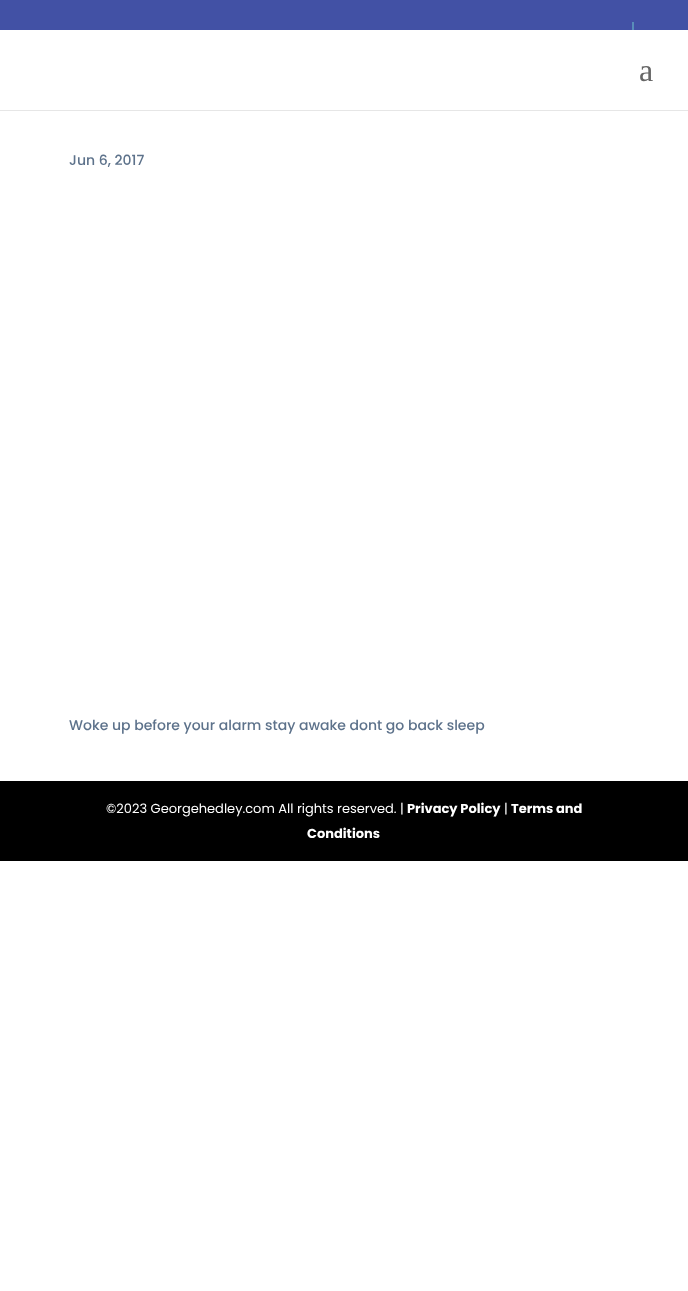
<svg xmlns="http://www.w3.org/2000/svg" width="688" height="1291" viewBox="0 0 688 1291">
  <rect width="100%" height="100%" fill="rgb(255,255,255)"/>
  <rect x="0" y="0" width="688" height="30" fill="rgb(66,81,165)"/>
  <rect x="632" y="22" width="2" height="8" fill="rgb(89,141,185)"/>
  <rect x="0" y="110" width="688" height="1" fill="rgb(230,230,230)"/>
  <text x="639" y="81" font-family="Liberation Serif" font-size="32" fill="rgb(102,102,102)">a</text>
  <g font-family="Poppins" font-size="14" font-weight="500" fill="rgb(93,114,139)">
    <text x="69" y="165">Jun 6, 2017</text>
    <text x="69" y="730">Woke up before your alarm stay awake dont go back sleep</text>
  </g>
  <rect x="0" y="781" width="688" height="80" fill="rgb(0,0,0)"/>
  <text x="106" y="813" font-family="Poppins" font-size="13" fill="rgb(255,255,255)">©2023 Georgehedley.com All rights reserved. |</text>
  <text x="407" y="813" font-family="Poppins" font-size="13" font-weight="bold" fill="rgb(255,255,255)">Privacy Policy</text>
  <text x="504" y="813" font-family="Poppins" font-size="13" fill="rgb(255,255,255)">|</text>
  <g font-family="Poppins" font-size="13" font-weight="bold" fill="rgb(255,255,255)">
    <text x="511" y="813">Terms and</text>
    <text x="307" y="838">Conditions</text>
  </g>
</svg>
